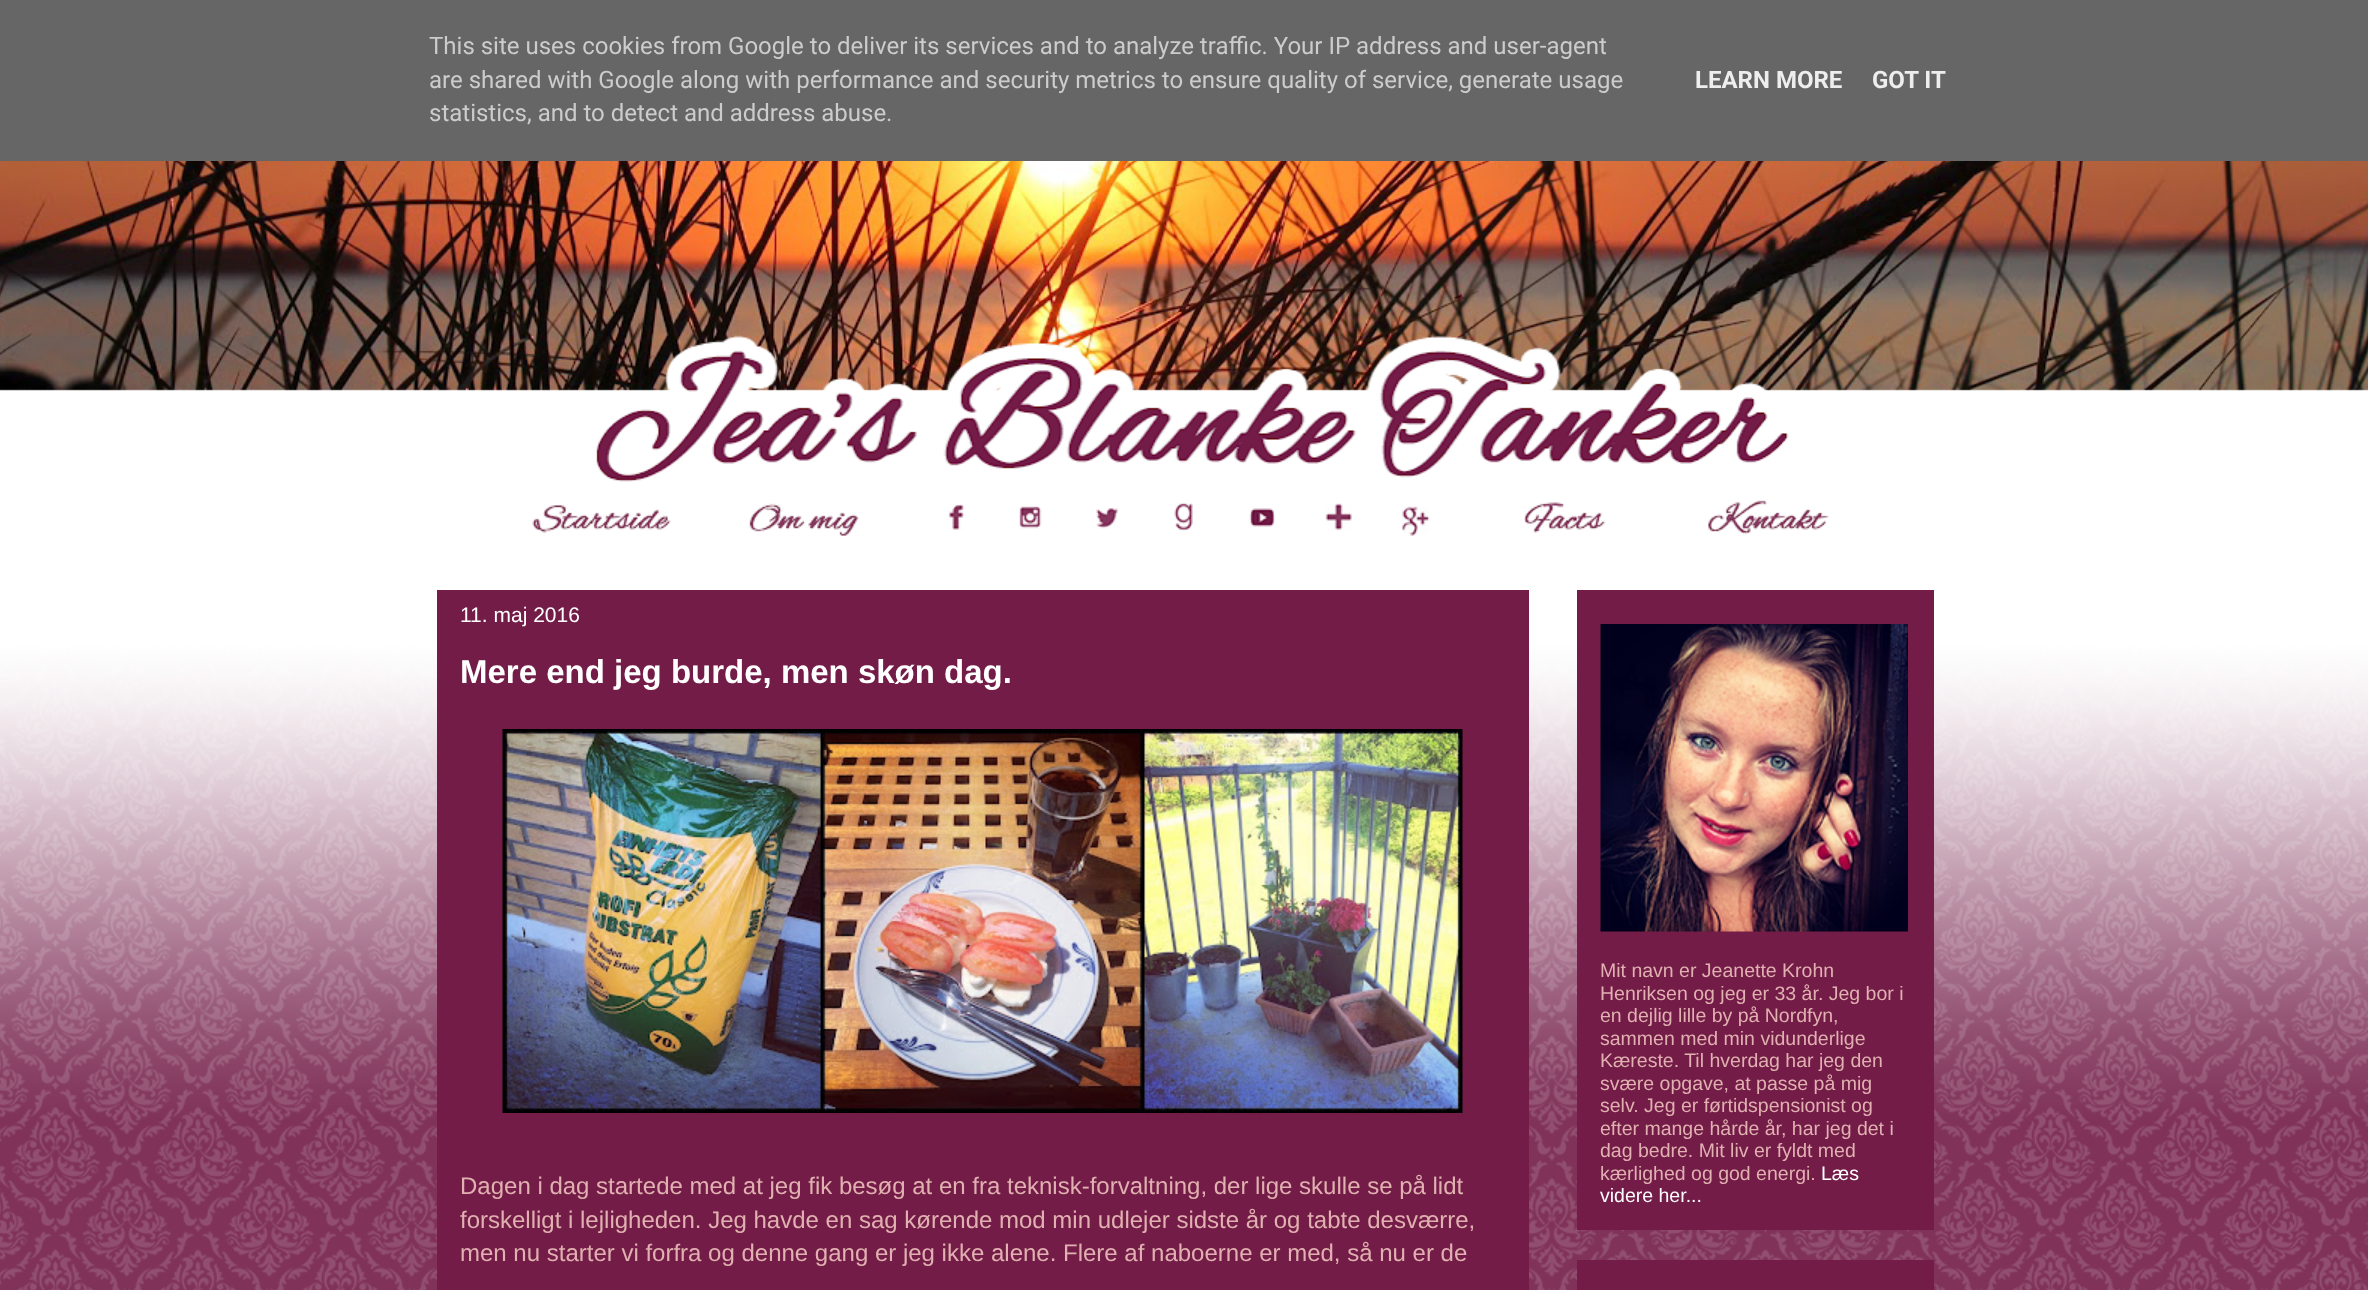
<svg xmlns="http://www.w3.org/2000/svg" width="2368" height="1290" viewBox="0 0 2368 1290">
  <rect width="100%" height="100%" fill="rgb(255,255,255)"/>
  <image x="0" y="161" width="2368" height="1129" href="pic1.png"/>
  <rect x="0" y="0" width="2368" height="161" fill="rgb(102,102,102)"/>
  <g font-family="Roboto" font-size="24" fill="rgb(204,204,204)">
    <text>
      <tspan x="429" y="54">This site uses cookies from Google to deliver its services and to analyze traffic. Your IP address and user-agent</tspan>
      <tspan x="429" y="88">are shared with Google along with performance and security metrics to ensure quality of service, generate usage</tspan>
      <tspan x="429" y="121">statistics, and to detect and address abuse.</tspan>
    </text>
  </g>
  <g font-family="Roboto" font-size="24" font-weight="bold" fill="rgb(238,238,238)">
    <text x="1695" y="88">LEARN MORE</text>
    <text x="1872" y="88">GOT IT</text>
  </g>
  <image x="596" y="335" width="1193" height="147" href="pic2.png"/>
  <image x="532" y="505" width="139" height="28" href="pic3.png"/>
  <image x="749" y="503" width="110" height="33" href="pic4.png"/>
  <image x="949" y="504" width="15" height="26" href="pic5.png"/>
  <image x="1019" y="506" width="23" height="23" href="pic6.png"/>
  <image x="1096" y="508" width="22" height="21" href="pic7.png"/>
  <image x="1174" y="502" width="19" height="29" href="pic8.png"/>
  <image x="1249" y="508" width="27" height="19" href="pic9.png"/>
  <image x="1325" y="503" width="27" height="27" href="pic10.png"/>
  <image x="1402" y="506" width="28" height="30" href="pic11.png"/>
  <image x="1524" y="502" width="82" height="31" href="pic12.png"/>
  <image x="1708" y="500" width="121" height="35" href="pic13.png"/>
  <rect x="437" y="590" width="1092" height="700" fill="rgb(114,28,71)"/>
  <text x="460" y="622" font-family="Liberation Sans" font-size="21" fill="rgb(255,255,255)">11. maj 2016</text>
  <text x="460" y="683" font-family="Liberation Sans" font-size="33" font-weight="bold" fill="rgb(255,255,255)">Mere end jeg burde, men skøn dag.</text>
  <image x="502" y="729" width="961" height="384" href="pic14.png"/>
  <g font-family="Liberation Sans" font-size="24" fill="rgb(225,176,176)">
    <text>
      <tspan x="460" y="1194">Dagen i dag startede med at jeg fik besøg at en fra teknisk-forvaltning, der lige skulle se på lidt</tspan>
      <tspan x="460" y="1228">forskelligt i lejligheden. Jeg havde en sag kørende mod min udlejer sidste år og tabte desværre,</tspan>
      <tspan x="460" y="1261">men nu starter vi forfra og denne gang er jeg ikke alene. Flere af naboerne er med, så nu er de</tspan>
    </text>
  </g>
  <rect x="1577" y="590" width="357" height="640" fill="rgb(114,28,71)"/>
  <image x="1600" y="624" width="308" height="308" href="pic15.png"/>
  <g font-family="Liberation Sans" font-size="19.5" fill="rgb(225,176,176)">
    <text>
      <tspan x="1600" y="977">Mit navn er Jeanette Krohn</tspan>
      <tspan x="1600" y="1000">Henriksen og jeg er 33 år. Jeg bor i</tspan>
      <tspan x="1600" y="1022">en dejlig lille by på Nordfyn,</tspan>
      <tspan x="1600" y="1045">sammen med min vidunderlige</tspan>
      <tspan x="1600" y="1067">Kæreste. Til hverdag har jeg den</tspan>
      <tspan x="1600" y="1090">svære opgave, at passe på mig</tspan>
      <tspan x="1600" y="1112">selv. Jeg er førtidspensionist og</tspan>
      <tspan x="1600" y="1135">efter mange hårde år, har jeg det i</tspan>
      <tspan x="1600" y="1157">dag bedre. Mit liv er fyldt med</tspan>
      <tspan x="1600" y="1180">kærlighed og god energi.</tspan>
    </text>
  </g>
  <g font-family="Liberation Sans" font-size="19.5" fill="rgb(255,255,255)">
    <text x="1821" y="1180">Læs</text>
    <text x="1600" y="1202">videre her...</text>
  </g>
  <rect x="1577" y="1260" width="357" height="30" fill="rgb(114,28,71)"/>
</svg>
